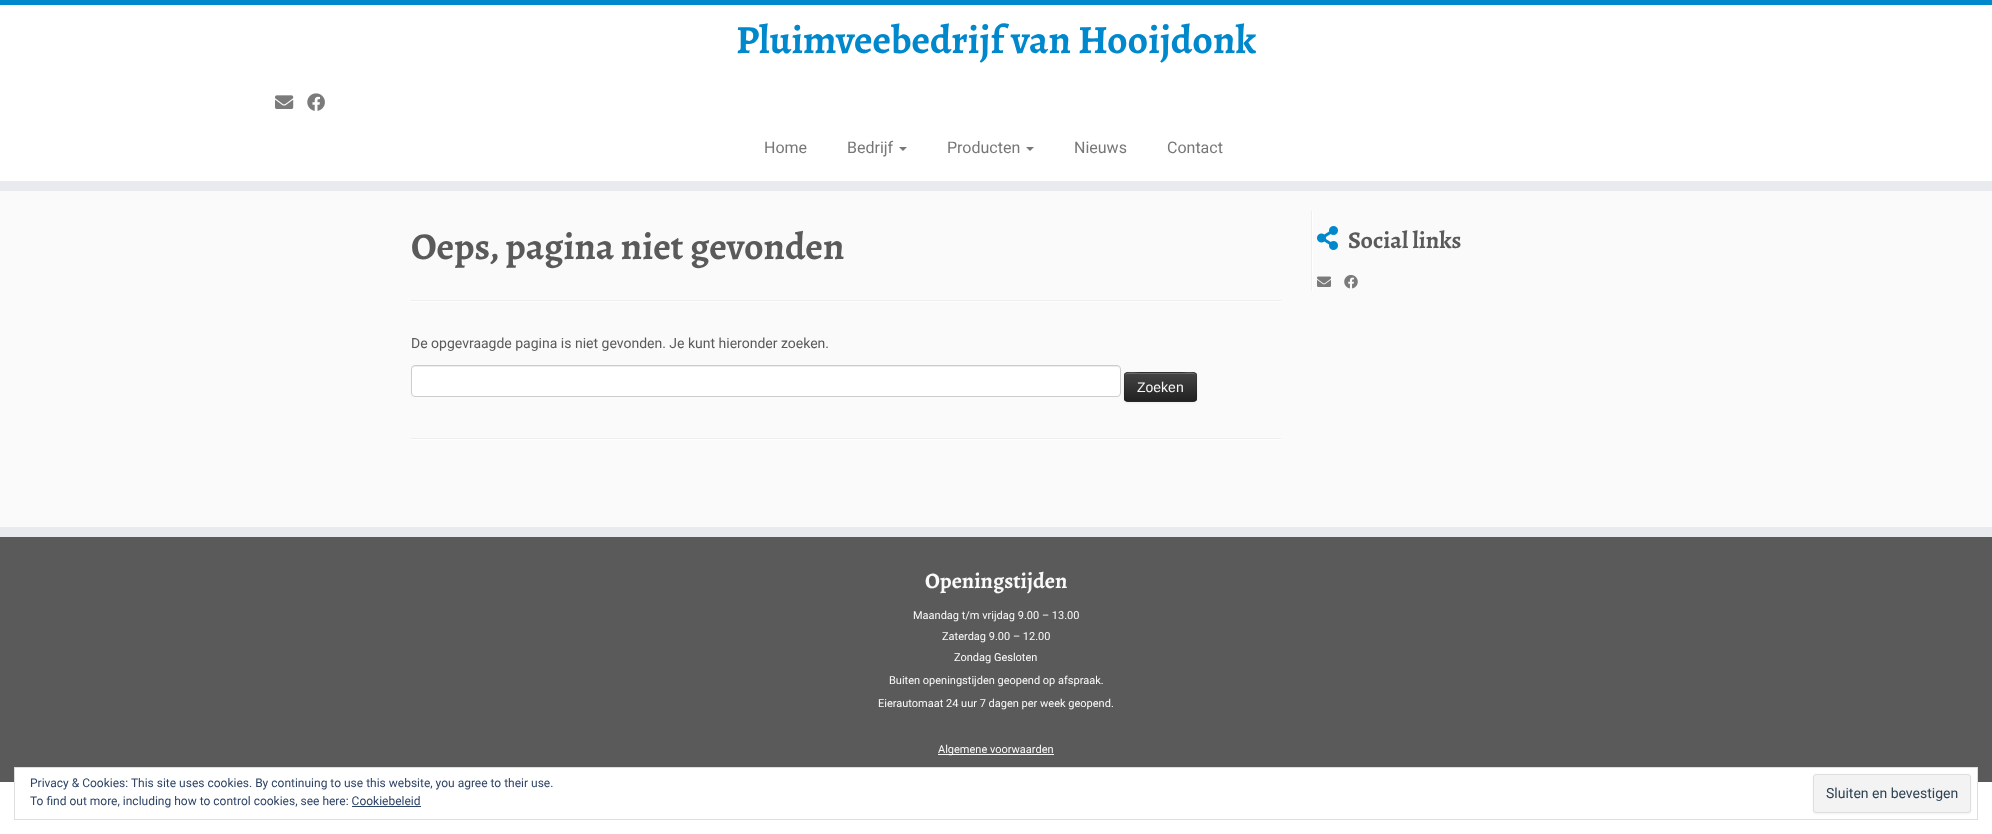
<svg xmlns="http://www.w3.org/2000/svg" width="1992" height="834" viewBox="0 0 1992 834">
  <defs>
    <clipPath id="clip1"><rect x="1124" y="372" width="73" height="30" rx="4"/></clipPath>
    <linearGradient id="g1" gradientUnits="userSpaceOnUse" x1="1161" y1="373" x2="1161" y2="401"><stop offset="0" stop-color="rgb(68,68,68)"/><stop offset="1" stop-color="rgb(34,34,34)"/></linearGradient>
  </defs>
  <rect width="100%" height="100%" fill="rgb(250,250,250)"/>
  <rect x="0" y="5" width="1992" height="176" fill="rgb(255,255,255)"/>
  <rect x="0" y="0" width="1992" height="5" fill="rgb(0,136,204)"/>
  <rect x="0" y="181" width="1992" height="10" fill="rgb(233,234,238)"/>
  <text x="736" y="53" font-family="Alegreya" font-size="40" font-weight="bold" fill="rgb(0,136,204)">Pluimveebedrijf van Hooijdonk</text>
  <image x="275" y="95" width="19" height="14" href="pic1.png"/>
  <image x="307" y="93" width="18" height="18" href="pic2.png"/>
  <g font-family="Roboto" font-size="16" fill="rgb(119,119,119)">
    <text x="764" y="153">Home</text>
    <text x="847" y="153">Bedrijf</text>
  </g>
  <path d="M899 147H907L903 151Z" fill="rgb(119,119,119)"/>
  <text x="947" y="153" font-family="Roboto" font-size="16" fill="rgb(119,119,119)">Producten</text>
  <path d="M1026 147H1034L1030 151Z" fill="rgb(119,119,119)"/>
  <g font-family="Roboto" font-size="16" fill="rgb(119,119,119)">
    <text x="1074" y="153">Nieuws</text>
    <text x="1167" y="153">Contact</text>
  </g>
  <text x="411" y="259" font-family="Alegreya" font-size="38" font-weight="bold" fill="rgb(90,90,90)">Oeps, pagina niet gevonden</text>
  <rect x="411" y="300" width="870" height="1" fill="rgb(238,238,238)"/>
  <rect x="411" y="301" width="870" height="1" fill="rgb(255,255,255)"/>
  <text x="411" y="348" font-family="Roboto" font-size="14" fill="rgb(90,90,90)">De opgevraagde pagina is niet gevonden. Je kunt hieronder zoeken.</text>
  <rect x="411" y="365" width="710" height="32" rx="4" fill="rgb(255,255,255)"/>
  <path d="M415 367H1117C1119 367 1120 368 1120 370C1120 368 1119 366 1117 366H415C413 366 412 368 412 370C412 368 413 367 415 367Z" fill="rgb(236,236,236)"/>
  <rect x="411.5" y="365.5" width="709" height="31" rx="3.5" fill="none" stroke="rgb(204,204,204)"/>
  <rect x="1124" y="373" width="73" height="30" rx="4" fill="rgba(0,0,0,0.05)" filter="blur(1px)"/>
  <rect x="1124" y="372" width="73" height="30" rx="4" fill="rgb(54,54,54)"/>
  <g clip-path="url(#clip1)">
    <rect x="1124" y="373" width="73" height="28" fill="url(#g1)"/>
  </g>
  <path d="M1128 374H1193C1195 374 1196 375 1196 377C1196 370 1186 373 1182 373H1139C1135 373 1125 370 1125 377C1125 375 1126 374 1128 374Z" fill="rgba(255,255,255,0.2)"/>
  <path d="M1195.5 400.5L1193.5 401.5H1127.5L1125.5 400.5" fill="none" stroke="rgba(0,0,0,0.25)"/>
  <path d="M1125.5 400.5C1123.5 398.5 1124.5 390 1124.5 387C1124.5 370.5 1122 372.5 1139 372.5H1182C1199 372.5 1196.5 370.5 1196.5 387C1196.5 390 1197.5 398.5 1195.5 400.5" fill="none" stroke="rgba(0,0,0,0.1)"/>
  <text x="1137" y="392" font-family="Liberation Sans" font-size="14" fill="rgb(250,250,250)">Zoeken</text>
  <rect x="411" y="438" width="870" height="1" fill="rgb(238,238,238)"/>
  <rect x="411" y="439" width="870" height="1" fill="rgb(255,255,255)"/>
  <rect x="1311" y="211" width="1" height="80" fill="rgb(238,238,238)"/>
  <rect x="1312" y="211" width="1" height="80" fill="rgb(255,255,255)"/>
  <image x="1317" y="226" width="21" height="24" href="pic3.png"/>
  <text x="1348" y="248" font-family="Alegreya" font-size="24" font-weight="bold" fill="rgb(90,90,90)">Social links</text>
  <image x="1317" y="276" width="14" height="11" href="pic4.png"/>
  <image x="1344" y="275" width="14" height="14" href="pic5.png"/>
  <rect x="0" y="537" width="1992" height="245" fill="rgb(90,90,90)"/>
  <rect x="0" y="527" width="1992" height="10" fill="rgb(233,234,238)"/>
  <text x="925" y="588" font-family="Alegreya" font-size="22" font-weight="bold" fill="rgb(250,250,250)">Openingstijden</text>
  <g font-family="Roboto" font-size="11" fill="rgb(250,250,250)">
    <text x="913" y="619">Maandag t/m vrijdag 9.00 – 13.00</text>
    <text x="942" y="640">Zaterdag 9.00 – 12.00</text>
    <text x="954" y="661">Zondag Gesloten</text>
    <text x="889" y="684">Buiten openingstijden geopend op afspraak.</text>
    <text x="878" y="707">Eierautomaat 24 uur 7 dagen per week geopend.</text>
  </g>
  <rect x="938" y="754" width="116" height="1" fill="rgb(250,250,250)"/>
  <text x="938" y="753" font-family="Roboto" font-size="11" fill="rgb(250,250,250)">Algemene voorwaarden</text>
  <rect x="0" y="782" width="1992" height="52" fill="rgb(255,255,255)"/>
  <rect x="15" y="768" width="1962" height="14" fill="rgb(255,255,255)"/>
  <rect x="14.5" y="767.5" width="1963" height="52" fill="none" stroke="rgb(222,222,222)"/>
  <g font-family="Roboto" font-size="12" fill="rgb(46,68,103)">
    <text>
      <tspan x="30" y="787">Privacy &amp; Cookies: This site uses cookies. By continuing to use this website, you agree to their use.</tspan>
      <tspan x="30" y="805">To find out more, including how to control cookies, see here: Cookiebeleid</tspan>
    </text>
  </g>
  <rect x="1813" y="775" width="158" height="39" rx="3" fill="rgba(0,0,0,0.05)" filter="blur(1px)"/>
  <rect x="1813.5" y="774.5" width="157" height="38" rx="2.5" fill="rgb(243,243,243)" stroke="rgb(222,222,222)"/>
  <text x="1826" y="798" font-family="Roboto" font-size="14" fill="rgb(46,68,83)">Sluiten en bevestigen</text>
  <rect x="352" y="806" width="69" height="1" fill="rgb(46,68,103)"/>
</svg>
